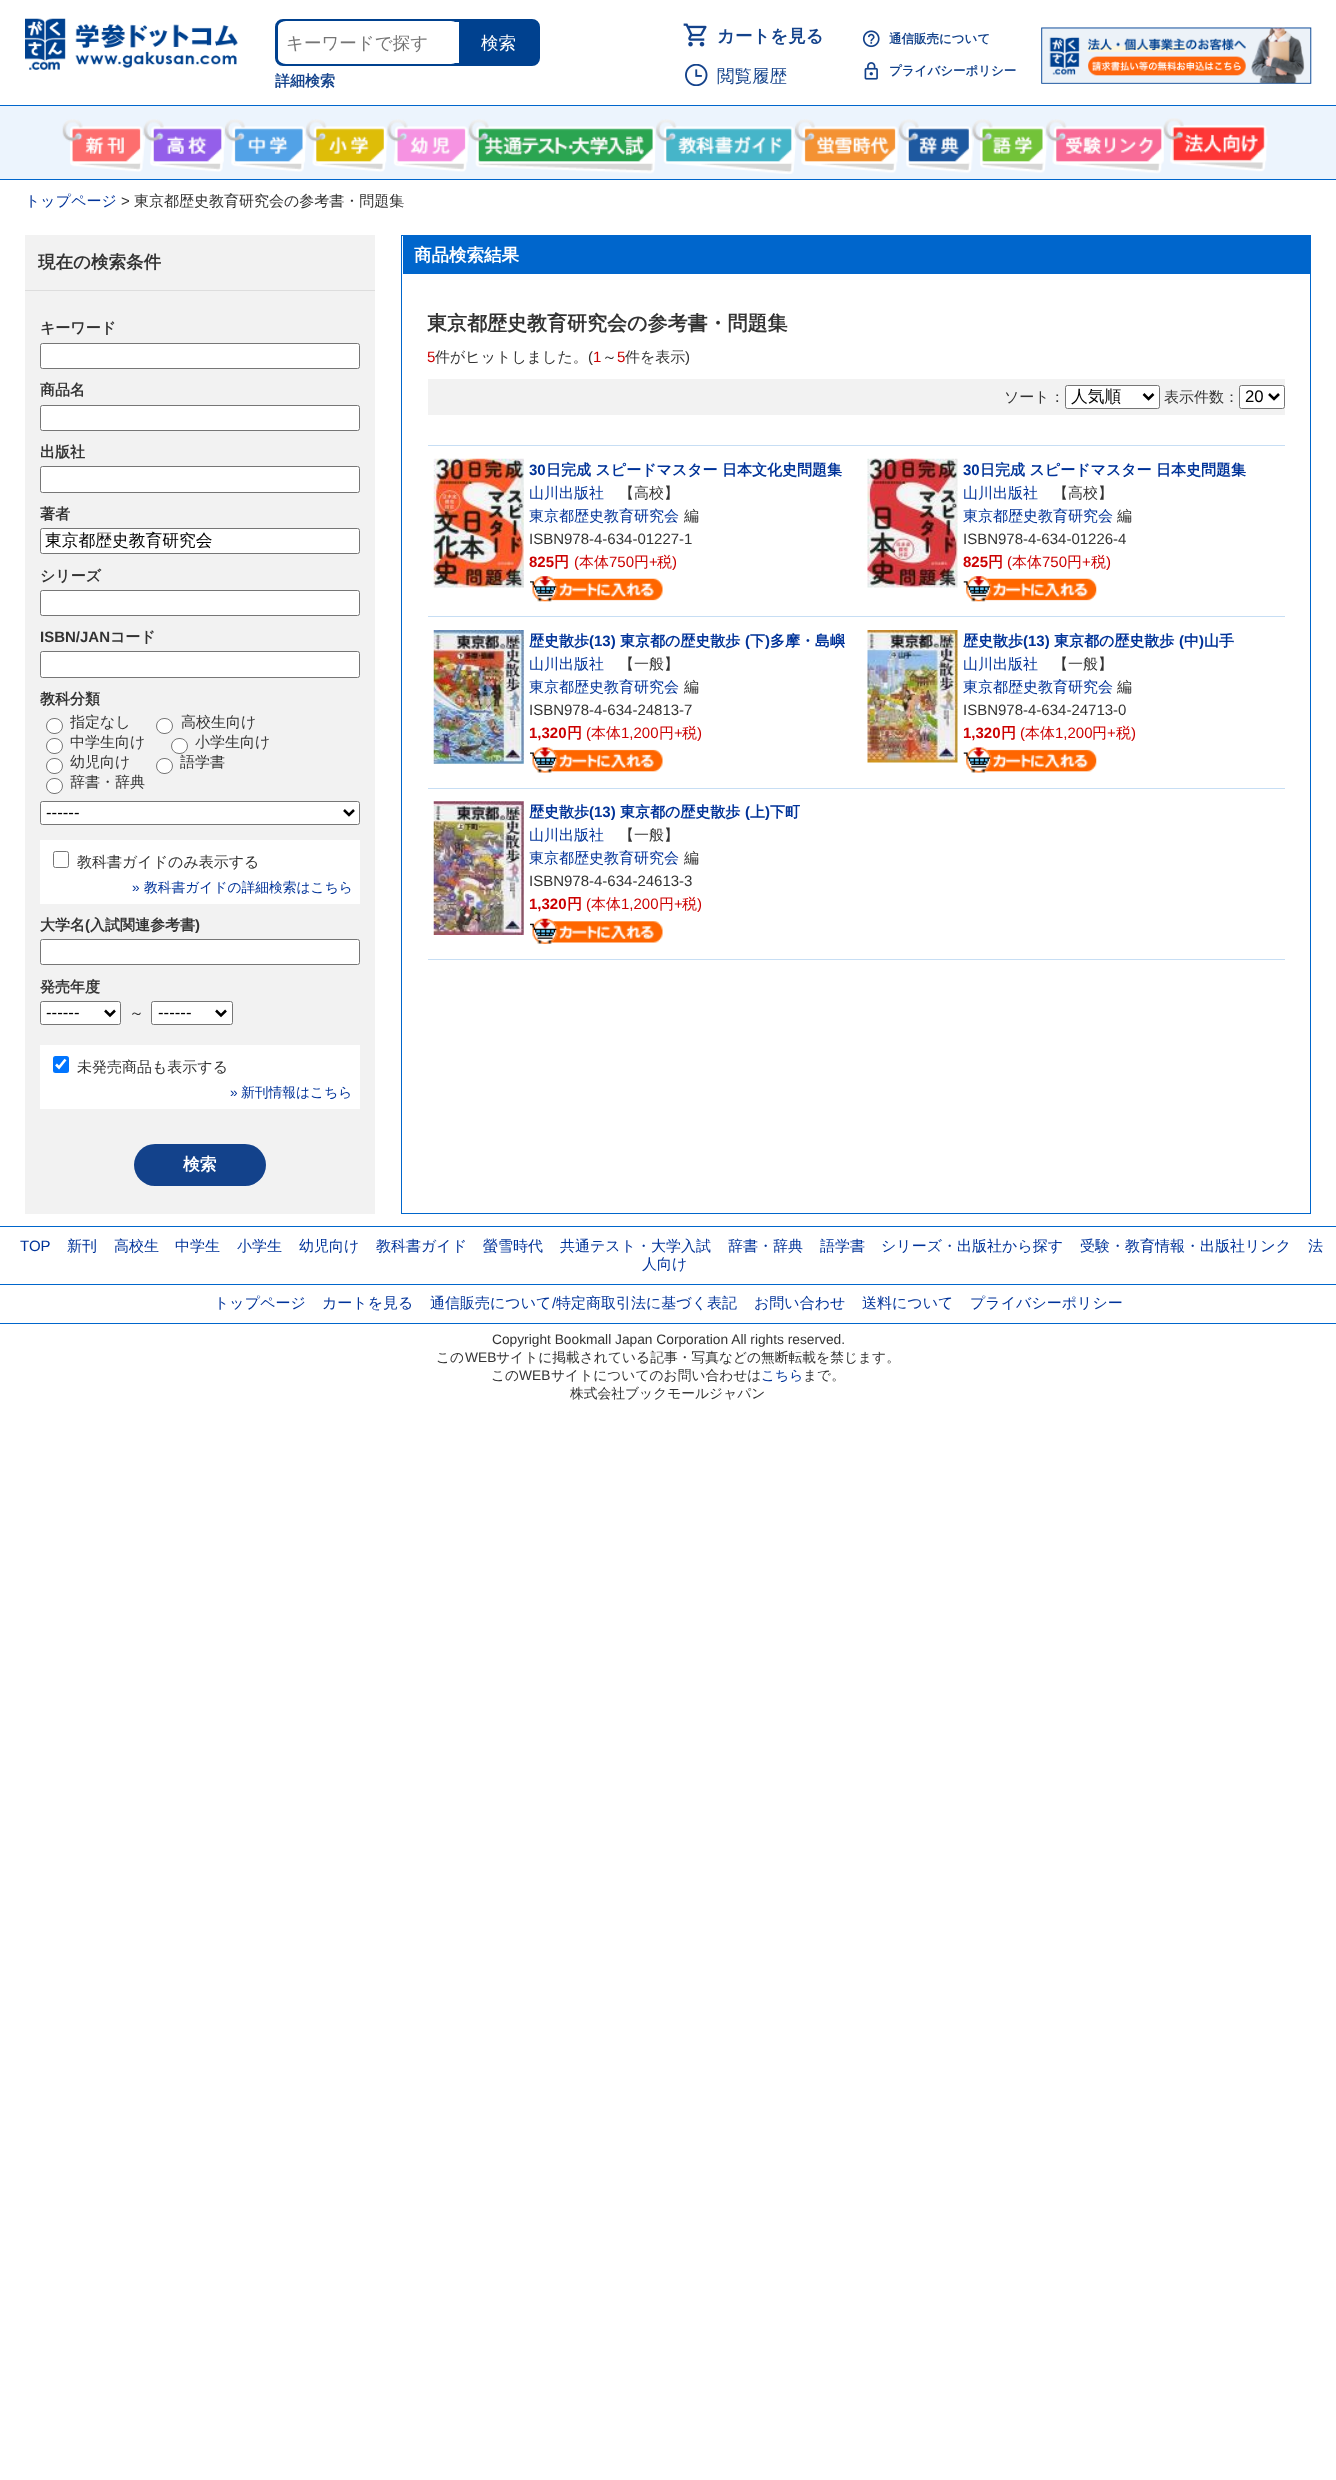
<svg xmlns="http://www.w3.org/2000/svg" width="1336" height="2480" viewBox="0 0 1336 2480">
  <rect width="100%" height="100%" fill="rgb(255,255,255)"/>
  <image x="25" y="18" width="213" height="52" href="pic1.png"/>
  <rect x="276.5" y="20.5" width="262" height="44" rx="6.5" fill="none" stroke="rgb(0,65,143)" stroke-width="3"/>
  <rect x="278" y="21" width="181" height="43" rx="8" fill="rgb(255,255,255)"/>
  <text x="286" y="49" font-family="WenQuanYi Zen Hei" font-size="17.5" font-weight="500" fill="rgb(117,117,117)">キーワードで探す</text>
  <path d="M459 21H533C536 21 538 23 538 26V59C538 62 536 64 533 64H459Z" fill="rgb(0,65,143)"/>
  <text x="481" y="49" font-family="WenQuanYi Zen Hei" font-size="17.5" font-weight="500" fill="rgb(255,255,255)">検索</text>
  <text x="275" y="86" font-family="WenQuanYi Zen Hei" font-size="15" font-weight="bold" fill="rgb(19,66,139)">詳細検索</text>
  <image x="683" y="23" width="24" height="24" href="pic2.png"/>
  <text x="717" y="42" font-family="WenQuanYi Zen Hei" font-size="17.5" font-weight="bold" fill="rgb(19,66,139)">カートを見る</text>
  <image x="685" y="64" width="23" height="22" href="pic3.png"/>
  <text x="717" y="82" font-family="WenQuanYi Zen Hei" font-size="17.5" font-weight="500" fill="rgb(19,66,139)">閲覧履歴</text>
  <image x="862" y="30" width="18" height="18" href="pic4.png"/>
  <text x="889" y="43" font-family="WenQuanYi Zen Hei" font-size="12.5" font-weight="bold" fill="rgb(19,66,139)">通信販売について</text>
  <image x="864" y="62" width="14" height="18" href="pic5.png"/>
  <text x="889" y="75" font-family="WenQuanYi Zen Hei" font-size="12.5" font-weight="bold" fill="rgb(19,66,139)">プライバシーポリシー</text>
  <image x="1041" y="27" width="271" height="57" href="pic6.png"/>
  <rect x="0" y="106" width="1336" height="73" fill="rgb(236,244,253)"/>
  <rect x="0" y="105" width="1336" height="1" fill="rgb(0,102,204)"/>
  <rect x="0" y="179" width="1336" height="1" fill="rgb(0,102,204)"/>
  <image x="62" y="119" width="82" height="53" href="pic7.png"/>
  <image x="143" y="119" width="82" height="53" href="pic8.png"/>
  <image x="225" y="119" width="82" height="53" href="pic9.png"/>
  <image x="306" y="119" width="82" height="53" href="pic10.png"/>
  <image x="387" y="119" width="82" height="53" href="pic11.png"/>
  <image x="468" y="119" width="188" height="55" href="pic12.png"/>
  <image x="656" y="119" width="139" height="55" href="pic13.png"/>
  <image x="795" y="119" width="104" height="54" href="pic14.png"/>
  <image x="898" y="119" width="75" height="54" href="pic15.png"/>
  <image x="972" y="119" width="75" height="54" href="pic16.png"/>
  <image x="1046" y="119" width="118" height="55" href="pic17.png"/>
  <image x="1163" y="118" width="105" height="54" href="pic18.png"/>
  <text x="25" y="206" font-family="WenQuanYi Zen Hei" font-size="15" font-weight="500" fill="rgb(0,51,153)">トップページ</text>
  <text x="121" y="206" font-family="Liberation Sans" font-size="15" fill="rgb(51,51,51)">&gt;</text>
  <text x="134" y="206" font-family="WenQuanYi Zen Hei" font-size="15" font-weight="500" fill="rgb(51,51,51)">東京都歴史教育研究会の参考書・問題集</text>
  <rect x="25" y="235" width="350" height="979" fill="rgb(242,242,242)"/>
  <rect x="25" y="290" width="350" height="1" fill="rgb(221,221,221)"/>
  <text x="38" y="268" font-family="WenQuanYi Zen Hei" font-size="17.5" font-weight="bold" fill="rgb(51,51,51)">現在の検索条件</text>
  <text x="40" y="333" font-family="WenQuanYi Zen Hei" font-size="15" font-weight="bold" fill="rgb(51,51,51)">キーワード</text>
  <rect x="40.5" y="343.5" width="319" height="25" rx="2" fill="rgb(255,255,255)" stroke="rgb(118,118,118)"/>
  <text x="40" y="395" font-family="WenQuanYi Zen Hei" font-size="15" font-weight="bold" fill="rgb(51,51,51)">商品名</text>
  <rect x="40.5" y="405.5" width="319" height="25" rx="2" fill="rgb(255,255,255)" stroke="rgb(118,118,118)"/>
  <text x="40" y="457" font-family="WenQuanYi Zen Hei" font-size="15" font-weight="bold" fill="rgb(51,51,51)">出版社</text>
  <rect x="40.5" y="466.5" width="319" height="26" rx="2" fill="rgb(255,255,255)" stroke="rgb(118,118,118)"/>
  <text x="40" y="519" font-family="WenQuanYi Zen Hei" font-size="15" font-weight="bold" fill="rgb(51,51,51)">著者</text>
  <rect x="40.5" y="528.5" width="319" height="25" rx="2" fill="rgb(255,255,255)" stroke="rgb(118,118,118)"/>
  <text x="45" y="546" font-family="WenQuanYi Zen Hei" font-size="16.75" font-weight="500" fill="rgb(0,0,0)">東京都歴史教育研究会</text>
  <text x="40" y="581" font-family="WenQuanYi Zen Hei" font-size="15" font-weight="bold" fill="rgb(51,51,51)">シリーズ</text>
  <rect x="40.5" y="590.5" width="319" height="25" rx="2" fill="rgb(255,255,255)" stroke="rgb(118,118,118)"/>
  <text x="40" y="642" font-family="Liberation Sans" font-size="15" font-weight="bold" fill="rgb(51,51,51)">ISBN/JAN</text>
  <text x="110" y="642" font-family="WenQuanYi Zen Hei" font-size="15" font-weight="bold" fill="rgb(51,51,51)">コード</text>
  <rect x="40.5" y="651.5" width="319" height="26" rx="2" fill="rgb(255,255,255)" stroke="rgb(118,118,118)"/>
  <text x="40" y="704" font-family="WenQuanYi Zen Hei" font-size="15" font-weight="bold" fill="rgb(51,51,51)">教科分類</text>
  <rect x="46.5" y="718.5" width="16" height="15" rx="7.5" fill="rgb(255,255,255)" stroke="rgb(118,118,118)"/>
  <text x="70" y="727" font-family="WenQuanYi Zen Hei" font-size="15" font-weight="500" fill="rgb(51,51,51)">指定なし</text>
  <rect x="156.5" y="718.5" width="16" height="15" rx="7.5" fill="rgb(255,255,255)" stroke="rgb(118,118,118)"/>
  <text x="181" y="727" font-family="WenQuanYi Zen Hei" font-size="15" font-weight="500" fill="rgb(51,51,51)">高校生向け</text>
  <rect x="46.5" y="738.5" width="16" height="15" rx="7.5" fill="rgb(255,255,255)" stroke="rgb(118,118,118)"/>
  <text x="70" y="747" font-family="WenQuanYi Zen Hei" font-size="15" font-weight="500" fill="rgb(51,51,51)">中学生向け</text>
  <rect x="171.5" y="738.5" width="16" height="15" rx="7.5" fill="rgb(255,255,255)" stroke="rgb(118,118,118)"/>
  <text x="195" y="747" font-family="WenQuanYi Zen Hei" font-size="15" font-weight="500" fill="rgb(51,51,51)">小学生向け</text>
  <rect x="46.5" y="758.5" width="16" height="15" rx="7.5" fill="rgb(255,255,255)" stroke="rgb(118,118,118)"/>
  <text x="70" y="767" font-family="WenQuanYi Zen Hei" font-size="15" font-weight="500" fill="rgb(51,51,51)">幼児向け</text>
  <rect x="156.5" y="758.5" width="16" height="15" rx="7.5" fill="rgb(255,255,255)" stroke="rgb(118,118,118)"/>
  <text x="180" y="767" font-family="WenQuanYi Zen Hei" font-size="15" font-weight="500" fill="rgb(51,51,51)">語学書</text>
  <rect x="46.5" y="778.5" width="16" height="15" rx="7.5" fill="rgb(255,255,255)" stroke="rgb(118,118,118)"/>
  <text x="70" y="787" font-family="WenQuanYi Zen Hei" font-size="15" font-weight="500" fill="rgb(51,51,51)">辞書・辞典</text>
  <rect x="40.5" y="801.5" width="319" height="23" rx="2" fill="rgb(255,255,255)" stroke="rgb(118,118,118)"/>
  <path d="M344 810L349 815L354 810" fill="none" stroke="rgb(0,0,0)" stroke-width="2.5"/>
  <text x="46" y="818" font-family="Liberation Sans" font-size="16.75" fill="rgb(0,0,0)">------</text>
  <rect x="40" y="840" width="320" height="64" fill="rgb(255,255,255)"/>
  <rect x="53.5" y="851.5" width="15" height="16" rx="2" fill="none" stroke="rgb(118,118,118)"/>
  <text x="77" y="867" font-family="WenQuanYi Zen Hei" font-size="15" font-weight="500" fill="rgb(51,51,51)">教科書ガイドのみ表示する</text>
  <text x="132" y="892" font-family="Liberation Sans" font-size="13.75" fill="rgb(0,51,153)">»</text>
  <text x="144" y="892" font-family="WenQuanYi Zen Hei" font-size="13.75" font-weight="500" fill="rgb(0,51,153)">教科書ガイドの詳細検索はこちら</text>
  <text x="40" y="930" font-family="WenQuanYi Zen Hei" font-size="15" font-weight="bold" fill="rgb(51,51,51)">大学名</text>
  <text x="85" y="930" font-family="Liberation Sans" font-size="15" font-weight="bold" fill="rgb(51,51,51)">(</text>
  <text x="90" y="930" font-family="WenQuanYi Zen Hei" font-size="15" font-weight="bold" fill="rgb(51,51,51)">入試関連参考書</text>
  <text x="195" y="930" font-family="Liberation Sans" font-size="15" font-weight="bold" fill="rgb(51,51,51)">)</text>
  <rect x="40.5" y="939.5" width="319" height="25" rx="2" fill="rgb(255,255,255)" stroke="rgb(118,118,118)"/>
  <text x="40" y="992" font-family="WenQuanYi Zen Hei" font-size="15" font-weight="bold" fill="rgb(51,51,51)">発売年度</text>
  <rect x="40.5" y="1001.5" width="80" height="23" rx="2" fill="rgb(255,255,255)" stroke="rgb(118,118,118)"/>
  <path d="M105 1010.5L110 1015.5L115 1010.5" fill="none" stroke="rgb(0,0,0)" stroke-width="2.5"/>
  <text x="46" y="1018" font-family="Liberation Sans" font-size="16.75" fill="rgb(0,0,0)">------</text>
  <text x="129" y="1018" font-family="WenQuanYi Zen Hei" font-size="15" font-weight="500" fill="rgb(51,51,51)">～</text>
  <rect x="151.5" y="1001.5" width="81" height="23" rx="2" fill="rgb(255,255,255)" stroke="rgb(118,118,118)"/>
  <path d="M216 1010.5L221 1015.5L226 1010.5" fill="none" stroke="rgb(0,0,0)" stroke-width="2.5"/>
  <text x="158" y="1018" font-family="Liberation Sans" font-size="16.75" fill="rgb(0,0,0)">------</text>
  <rect x="40" y="1045" width="320" height="64" fill="rgb(255,255,255)"/>
  <rect x="53" y="1056" width="16" height="17" rx="2.5" fill="rgb(0,117,255)"/>
  <path d="M56 1064.5L59 1067.5L65.5 1059.5" fill="none" stroke="rgb(255,255,255)" stroke-width="2.6"/>
  <text x="77" y="1072" font-family="WenQuanYi Zen Hei" font-size="15" font-weight="500" fill="rgb(51,51,51)">未発売商品も表示する</text>
  <text x="230" y="1097" font-family="Liberation Sans" font-size="13.75" fill="rgb(0,51,153)">»</text>
  <text x="241" y="1097" font-family="WenQuanYi Zen Hei" font-size="13.75" font-weight="500" fill="rgb(0,51,153)">新刊情報はこちら</text>
  <rect x="134" y="1144" width="132" height="42" rx="21" fill="rgb(19,66,139)"/>
  <text x="183" y="1170" font-family="WenQuanYi Zen Hei" font-size="16.75" font-weight="bold" fill="rgb(255,255,255)">検索</text>
  <rect x="401.5" y="235.5" width="909" height="978" fill="none" stroke="rgb(0,102,204)"/>
  <rect x="403" y="236" width="907" height="38" fill="rgb(0,102,204)"/>
  <text x="414" y="261" font-family="WenQuanYi Zen Hei" font-size="17.5" font-weight="bold" fill="rgb(255,255,255)">商品検索結果</text>
  <text x="427" y="330" font-family="WenQuanYi Zen Hei" font-size="20" font-weight="bold" fill="rgb(51,51,51)">東京都歴史教育研究会の参考書・問題集</text>
  <text x="427" y="362" font-family="Liberation Sans" font-size="15" fill="rgb(204,0,0)">5</text>
  <text x="435" y="362" font-family="WenQuanYi Zen Hei" font-size="15" font-weight="500" fill="rgb(51,51,51)">件がヒットしました。</text>
  <text x="588" y="362" font-family="Liberation Sans" font-size="15" fill="rgb(51,51,51)">(</text>
  <text x="593" y="362" font-family="Liberation Sans" font-size="15" fill="rgb(204,0,0)">1</text>
  <text x="602" y="362" font-family="WenQuanYi Zen Hei" font-size="15" font-weight="500" fill="rgb(51,51,51)">～</text>
  <text x="617" y="362" font-family="Liberation Sans" font-size="15" fill="rgb(204,0,0)">5</text>
  <text x="625" y="362" font-family="WenQuanYi Zen Hei" font-size="15" font-weight="500" fill="rgb(51,51,51)">件を表示</text>
  <text x="685" y="362" font-family="Liberation Sans" font-size="15" fill="rgb(51,51,51)">)</text>
  <rect x="428" y="379" width="857" height="36" fill="rgb(242,242,242)"/>
  <text x="1004" y="402" font-family="WenQuanYi Zen Hei" font-size="15" font-weight="500" fill="rgb(51,51,51)">ソート：</text>
  <rect x="1065.5" y="385.5" width="94" height="23" rx="2" fill="rgb(255,255,255)" stroke="rgb(118,118,118)"/>
  <path d="M1143.5 394L1148.5 399L1153.5 394" fill="none" stroke="rgb(0,0,0)" stroke-width="2.5"/>
  <text x="1071" y="402" font-family="WenQuanYi Zen Hei" font-size="16.75" font-weight="500" fill="rgb(0,0,0)">人気順</text>
  <text x="1164" y="402" font-family="WenQuanYi Zen Hei" font-size="15" font-weight="500" fill="rgb(51,51,51)">表示件数：</text>
  <rect x="1239.5" y="385.5" width="45" height="23" rx="2" fill="rgb(255,255,255)" stroke="rgb(118,118,118)"/>
  <path d="M1269 394L1274 399L1279 394" fill="none" stroke="rgb(0,0,0)" stroke-width="2.5"/>
  <text x="1245" y="402" font-family="Liberation Sans" font-size="16.75" fill="rgb(0,0,0)">20</text>
  <rect x="428" y="445" width="857" height="1" fill="rgb(199,222,244)"/>
  <image x="433" y="458" width="91" height="130" href="pic19.png"/>
  <text x="529" y="475" font-family="Liberation Sans" font-size="15" font-weight="bold" fill="rgb(0,51,153)">30</text>
  <text x="546" y="475" font-family="WenQuanYi Zen Hei" font-size="15" font-weight="bold" fill="rgb(0,51,153)">日完成 スピードマスター 日本文化史問題集</text>
  <text x="529" y="498" font-family="WenQuanYi Zen Hei" font-size="15" font-weight="500" fill="rgb(0,51,153)">山川出版社</text>
  <text x="619" y="498" font-family="WenQuanYi Zen Hei" font-size="15" font-weight="500" fill="rgb(51,51,51)">【高校】</text>
  <text x="529" y="521" font-family="WenQuanYi Zen Hei" font-size="15" font-weight="500" fill="rgb(0,51,153)">東京都歴史教育研究会</text>
  <text x="684" y="521" font-family="WenQuanYi Zen Hei" font-size="15" font-weight="500" fill="rgb(51,51,51)">編</text>
  <text x="529" y="544" font-family="Liberation Sans" font-size="15" fill="rgb(51,51,51)">ISBN978-4-634-01227-1</text>
  <text x="529" y="567" font-family="Liberation Sans" font-size="15" font-weight="bold" fill="rgb(204,0,0)">825</text>
  <text x="554" y="567" font-family="WenQuanYi Zen Hei" font-size="15" font-weight="bold" fill="rgb(204,0,0)">円</text>
  <text x="574" y="567" font-family="Liberation Sans" font-size="15" fill="rgb(204,0,0)">(</text>
  <text x="579" y="567" font-family="WenQuanYi Zen Hei" font-size="15" font-weight="500" fill="rgb(204,0,0)">本体</text>
  <text x="609" y="567" font-family="Liberation Sans" font-size="15" fill="rgb(204,0,0)">750</text>
  <text x="634" y="567" font-family="WenQuanYi Zen Hei" font-size="15" font-weight="500" fill="rgb(204,0,0)">円</text>
  <text x="649" y="567" font-family="Liberation Sans" font-size="15" fill="rgb(204,0,0)">+</text>
  <text x="657" y="567" font-family="WenQuanYi Zen Hei" font-size="15" font-weight="500" fill="rgb(204,0,0)">税</text>
  <text x="672" y="567" font-family="Liberation Sans" font-size="15" fill="rgb(204,0,0)">)</text>
  <image x="530" y="576" width="133" height="26" href="pic20.png"/>
  <image x="867" y="458" width="91" height="130" href="pic21.png"/>
  <text x="963" y="475" font-family="Liberation Sans" font-size="15" font-weight="bold" fill="rgb(0,51,153)">30</text>
  <text x="980" y="475" font-family="WenQuanYi Zen Hei" font-size="15" font-weight="bold" fill="rgb(0,51,153)">日完成 スピードマスター 日本史問題集</text>
  <text x="963" y="498" font-family="WenQuanYi Zen Hei" font-size="15" font-weight="500" fill="rgb(0,51,153)">山川出版社</text>
  <text x="1053" y="498" font-family="WenQuanYi Zen Hei" font-size="15" font-weight="500" fill="rgb(51,51,51)">【高校】</text>
  <text x="963" y="521" font-family="WenQuanYi Zen Hei" font-size="15" font-weight="500" fill="rgb(0,51,153)">東京都歴史教育研究会</text>
  <text x="1117" y="521" font-family="WenQuanYi Zen Hei" font-size="15" font-weight="500" fill="rgb(51,51,51)">編</text>
  <text x="963" y="544" font-family="Liberation Sans" font-size="15" fill="rgb(51,51,51)">ISBN978-4-634-01226-4</text>
  <text x="963" y="567" font-family="Liberation Sans" font-size="15" font-weight="bold" fill="rgb(204,0,0)">825</text>
  <text x="988" y="567" font-family="WenQuanYi Zen Hei" font-size="15" font-weight="bold" fill="rgb(204,0,0)">円</text>
  <text x="1007" y="567" font-family="Liberation Sans" font-size="15" fill="rgb(204,0,0)">(</text>
  <text x="1012" y="567" font-family="WenQuanYi Zen Hei" font-size="15" font-weight="500" fill="rgb(204,0,0)">本体</text>
  <text x="1042" y="567" font-family="Liberation Sans" font-size="15" fill="rgb(204,0,0)">750</text>
  <text x="1067" y="567" font-family="WenQuanYi Zen Hei" font-size="15" font-weight="500" fill="rgb(204,0,0)">円</text>
  <text x="1082" y="567" font-family="Liberation Sans" font-size="15" fill="rgb(204,0,0)">+</text>
  <text x="1091" y="567" font-family="WenQuanYi Zen Hei" font-size="15" font-weight="500" fill="rgb(204,0,0)">税</text>
  <text x="1106" y="567" font-family="Liberation Sans" font-size="15" fill="rgb(204,0,0)">)</text>
  <image x="963" y="576" width="134" height="26" href="pic22.png"/>
  <rect x="428" y="616" width="857" height="1" fill="rgb(199,222,244)"/>
  <image x="433" y="630" width="91" height="134" href="pic23.png"/>
  <text x="529" y="646" font-family="WenQuanYi Zen Hei" font-size="15" font-weight="bold" fill="rgb(0,51,153)">歴史散歩</text>
  <text x="589" y="646" font-family="Liberation Sans" font-size="15" font-weight="bold" fill="rgb(0,51,153)">(13)</text>
  <text x="620" y="646" font-family="WenQuanYi Zen Hei" font-size="15" font-weight="bold" fill="rgb(0,51,153)">東京都の歴史散歩</text>
  <text x="745" y="646" font-family="Liberation Sans" font-size="15" font-weight="bold" fill="rgb(0,51,153)">(</text>
  <text x="750" y="646" font-family="WenQuanYi Zen Hei" font-size="15" font-weight="bold" fill="rgb(0,51,153)">下</text>
  <text x="765" y="646" font-family="Liberation Sans" font-size="15" font-weight="bold" fill="rgb(0,51,153)">)</text>
  <text x="770" y="646" font-family="WenQuanYi Zen Hei" font-size="15" font-weight="bold" fill="rgb(0,51,153)">多摩・島嶼</text>
  <text x="529" y="669" font-family="WenQuanYi Zen Hei" font-size="15" font-weight="500" fill="rgb(0,51,153)">山川出版社</text>
  <text x="619" y="669" font-family="WenQuanYi Zen Hei" font-size="15" font-weight="500" fill="rgb(51,51,51)">【一般】</text>
  <text x="529" y="692" font-family="WenQuanYi Zen Hei" font-size="15" font-weight="500" fill="rgb(0,51,153)">東京都歴史教育研究会</text>
  <text x="684" y="692" font-family="WenQuanYi Zen Hei" font-size="15" font-weight="500" fill="rgb(51,51,51)">編</text>
  <text x="529" y="715" font-family="Liberation Sans" font-size="15" fill="rgb(51,51,51)">ISBN978-4-634-24813-7</text>
  <text x="529" y="738" font-family="Liberation Sans" font-size="15" font-weight="bold" fill="rgb(204,0,0)">1,320</text>
  <text x="567" y="738" font-family="WenQuanYi Zen Hei" font-size="15" font-weight="bold" fill="rgb(204,0,0)">円</text>
  <text x="586" y="738" font-family="Liberation Sans" font-size="15" fill="rgb(204,0,0)">(</text>
  <text x="591" y="738" font-family="WenQuanYi Zen Hei" font-size="15" font-weight="500" fill="rgb(204,0,0)">本体</text>
  <text x="621" y="738" font-family="Liberation Sans" font-size="15" fill="rgb(204,0,0)">1,200</text>
  <text x="659" y="738" font-family="WenQuanYi Zen Hei" font-size="15" font-weight="500" fill="rgb(204,0,0)">円</text>
  <text x="674" y="738" font-family="Liberation Sans" font-size="15" fill="rgb(204,0,0)">+</text>
  <text x="682" y="738" font-family="WenQuanYi Zen Hei" font-size="15" font-weight="500" fill="rgb(204,0,0)">税</text>
  <text x="697" y="738" font-family="Liberation Sans" font-size="15" fill="rgb(204,0,0)">)</text>
  <image x="530" y="747" width="133" height="26" href="pic24.png"/>
  <image x="867" y="630" width="91" height="133" href="pic25.png"/>
  <text x="963" y="646" font-family="WenQuanYi Zen Hei" font-size="15" font-weight="bold" fill="rgb(0,51,153)">歴史散歩</text>
  <text x="1023" y="646" font-family="Liberation Sans" font-size="15" font-weight="bold" fill="rgb(0,51,153)">(13)</text>
  <text x="1054" y="646" font-family="WenQuanYi Zen Hei" font-size="15" font-weight="bold" fill="rgb(0,51,153)">東京都の歴史散歩</text>
  <text x="1179" y="646" font-family="Liberation Sans" font-size="15" font-weight="bold" fill="rgb(0,51,153)">(</text>
  <text x="1184" y="646" font-family="WenQuanYi Zen Hei" font-size="15" font-weight="bold" fill="rgb(0,51,153)">中</text>
  <text x="1199" y="646" font-family="Liberation Sans" font-size="15" font-weight="bold" fill="rgb(0,51,153)">)</text>
  <text x="1204" y="646" font-family="WenQuanYi Zen Hei" font-size="15" font-weight="bold" fill="rgb(0,51,153)">山手</text>
  <text x="963" y="669" font-family="WenQuanYi Zen Hei" font-size="15" font-weight="500" fill="rgb(0,51,153)">山川出版社</text>
  <text x="1053" y="669" font-family="WenQuanYi Zen Hei" font-size="15" font-weight="500" fill="rgb(51,51,51)">【一般】</text>
  <text x="963" y="692" font-family="WenQuanYi Zen Hei" font-size="15" font-weight="500" fill="rgb(0,51,153)">東京都歴史教育研究会</text>
  <text x="1117" y="692" font-family="WenQuanYi Zen Hei" font-size="15" font-weight="500" fill="rgb(51,51,51)">編</text>
  <text x="963" y="715" font-family="Liberation Sans" font-size="15" fill="rgb(51,51,51)">ISBN978-4-634-24713-0</text>
  <text x="963" y="738" font-family="Liberation Sans" font-size="15" font-weight="bold" fill="rgb(204,0,0)">1,320</text>
  <text x="1001" y="738" font-family="WenQuanYi Zen Hei" font-size="15" font-weight="bold" fill="rgb(204,0,0)">円</text>
  <text x="1020" y="738" font-family="Liberation Sans" font-size="15" fill="rgb(204,0,0)">(</text>
  <text x="1025" y="738" font-family="WenQuanYi Zen Hei" font-size="15" font-weight="500" fill="rgb(204,0,0)">本体</text>
  <text x="1055" y="738" font-family="Liberation Sans" font-size="15" fill="rgb(204,0,0)">1,200</text>
  <text x="1092" y="738" font-family="WenQuanYi Zen Hei" font-size="15" font-weight="500" fill="rgb(204,0,0)">円</text>
  <text x="1107" y="738" font-family="Liberation Sans" font-size="15" fill="rgb(204,0,0)">+</text>
  <text x="1116" y="738" font-family="WenQuanYi Zen Hei" font-size="15" font-weight="500" fill="rgb(204,0,0)">税</text>
  <text x="1131" y="738" font-family="Liberation Sans" font-size="15" fill="rgb(204,0,0)">)</text>
  <image x="963" y="747" width="134" height="26" href="pic26.png"/>
  <rect x="428" y="788" width="857" height="1" fill="rgb(199,222,244)"/>
  <image x="433" y="801" width="91" height="134" href="pic27.png"/>
  <text x="529" y="817" font-family="WenQuanYi Zen Hei" font-size="15" font-weight="bold" fill="rgb(0,51,153)">歴史散歩</text>
  <text x="589" y="817" font-family="Liberation Sans" font-size="15" font-weight="bold" fill="rgb(0,51,153)">(13)</text>
  <text x="620" y="817" font-family="WenQuanYi Zen Hei" font-size="15" font-weight="bold" fill="rgb(0,51,153)">東京都の歴史散歩</text>
  <text x="745" y="817" font-family="Liberation Sans" font-size="15" font-weight="bold" fill="rgb(0,51,153)">(</text>
  <text x="750" y="817" font-family="WenQuanYi Zen Hei" font-size="15" font-weight="bold" fill="rgb(0,51,153)">上</text>
  <text x="765" y="817" font-family="Liberation Sans" font-size="15" font-weight="bold" fill="rgb(0,51,153)">)</text>
  <text x="770" y="817" font-family="WenQuanYi Zen Hei" font-size="15" font-weight="bold" fill="rgb(0,51,153)">下町</text>
  <text x="529" y="840" font-family="WenQuanYi Zen Hei" font-size="15" font-weight="500" fill="rgb(0,51,153)">山川出版社</text>
  <text x="619" y="840" font-family="WenQuanYi Zen Hei" font-size="15" font-weight="500" fill="rgb(51,51,51)">【一般】</text>
  <text x="529" y="863" font-family="WenQuanYi Zen Hei" font-size="15" font-weight="500" fill="rgb(0,51,153)">東京都歴史教育研究会</text>
  <text x="684" y="863" font-family="WenQuanYi Zen Hei" font-size="15" font-weight="500" fill="rgb(51,51,51)">編</text>
  <text x="529" y="886" font-family="Liberation Sans" font-size="15" fill="rgb(51,51,51)">ISBN978-4-634-24613-3</text>
  <text x="529" y="909" font-family="Liberation Sans" font-size="15" font-weight="bold" fill="rgb(204,0,0)">1,320</text>
  <text x="567" y="909" font-family="WenQuanYi Zen Hei" font-size="15" font-weight="bold" fill="rgb(204,0,0)">円</text>
  <text x="586" y="909" font-family="Liberation Sans" font-size="15" fill="rgb(204,0,0)">(</text>
  <text x="591" y="909" font-family="WenQuanYi Zen Hei" font-size="15" font-weight="500" fill="rgb(204,0,0)">本体</text>
  <text x="621" y="909" font-family="Liberation Sans" font-size="15" fill="rgb(204,0,0)">1,200</text>
  <text x="659" y="909" font-family="WenQuanYi Zen Hei" font-size="15" font-weight="500" fill="rgb(204,0,0)">円</text>
  <text x="674" y="909" font-family="Liberation Sans" font-size="15" fill="rgb(204,0,0)">+</text>
  <text x="682" y="909" font-family="WenQuanYi Zen Hei" font-size="15" font-weight="500" fill="rgb(204,0,0)">税</text>
  <text x="697" y="909" font-family="Liberation Sans" font-size="15" fill="rgb(204,0,0)">)</text>
  <image x="530" y="918" width="133" height="26" href="pic28.png"/>
  <rect x="428" y="959" width="857" height="1" fill="rgb(199,222,244)"/>
  <rect x="0" y="1226" width="1336" height="1" fill="rgb(0,102,204)"/>
  <text x="20" y="1251" font-family="Liberation Sans" font-size="15" fill="rgb(0,51,153)">TOP</text>
  <g font-family="WenQuanYi Zen Hei" font-size="15" font-weight="500" fill="rgb(0,51,153)">
    <text x="67" y="1251">新刊</text>
    <text x="114" y="1251">高校生</text>
    <text x="175" y="1251">中学生</text>
    <text x="237" y="1251">小学生</text>
    <text x="299" y="1251">幼児向け</text>
    <text x="376" y="1251">教科書ガイド</text>
    <text x="483" y="1251">螢雪時代</text>
    <text x="560" y="1251">共通テスト・大学入試</text>
    <text x="728" y="1251">辞書・辞典</text>
    <text x="820" y="1251">語学書</text>
    <text x="881" y="1251">シリーズ・出版社から探す</text>
    <text x="1080" y="1251">受験・教育情報・出版社リンク</text>
    <text x="1308" y="1251">法</text>
    <text x="642" y="1269">人向け</text>
  </g>
  <rect x="0" y="1284" width="1336" height="1" fill="rgb(0,102,204)"/>
  <g font-family="WenQuanYi Zen Hei" font-size="15" font-weight="500" fill="rgb(0,51,153)">
    <text x="214" y="1308">トップページ</text>
    <text x="322" y="1308">カートを見る</text>
    <text x="430" y="1308">通信販売について</text>
  </g>
  <text x="552" y="1308" font-family="Liberation Sans" font-size="15" fill="rgb(0,51,153)">/</text>
  <g font-family="WenQuanYi Zen Hei" font-size="15" font-weight="500" fill="rgb(0,51,153)">
    <text x="556" y="1308">特定商取引法に基づく表記</text>
    <text x="754" y="1308">お問い合わせ</text>
    <text x="862" y="1308">送料について</text>
    <text x="970" y="1308">プライバシーポリシー</text>
  </g>
  <rect x="0" y="1323" width="1336" height="1" fill="rgb(0,102,204)"/>
  <text x="492" y="1344" font-family="Liberation Sans" font-size="13.75" fill="rgb(51,51,51)">Copyright Bookmall Japan Corporation All rights reserved.</text>
  <text x="436" y="1362" font-family="WenQuanYi Zen Hei" font-size="13.75" font-weight="500" fill="rgb(51,51,51)">この</text>
  <text x="465" y="1362" font-family="Liberation Sans" font-size="13.75" fill="rgb(51,51,51)">WEB</text>
  <g font-family="WenQuanYi Zen Hei" font-size="13.75" font-weight="500" fill="rgb(51,51,51)">
    <text x="496" y="1362">サイトに掲載されている記事・写真などの無断転載を禁じます。</text>
    <text x="491" y="1380">この</text>
  </g>
  <text x="519" y="1380" font-family="Liberation Sans" font-size="13.75" fill="rgb(51,51,51)">WEB</text>
  <text x="551" y="1380" font-family="WenQuanYi Zen Hei" font-size="13.75" font-weight="500" fill="rgb(51,51,51)">サイトについてのお問い合わせは</text>
  <text x="761" y="1380" font-family="WenQuanYi Zen Hei" font-size="13.75" font-weight="500" fill="rgb(0,51,153)">こちら</text>
  <g font-family="WenQuanYi Zen Hei" font-size="13.75" font-weight="500" fill="rgb(51,51,51)">
    <text x="803" y="1380">まで。</text>
    <text x="570" y="1398">株式会社ブックモールジャパン</text>
  </g>
</svg>
